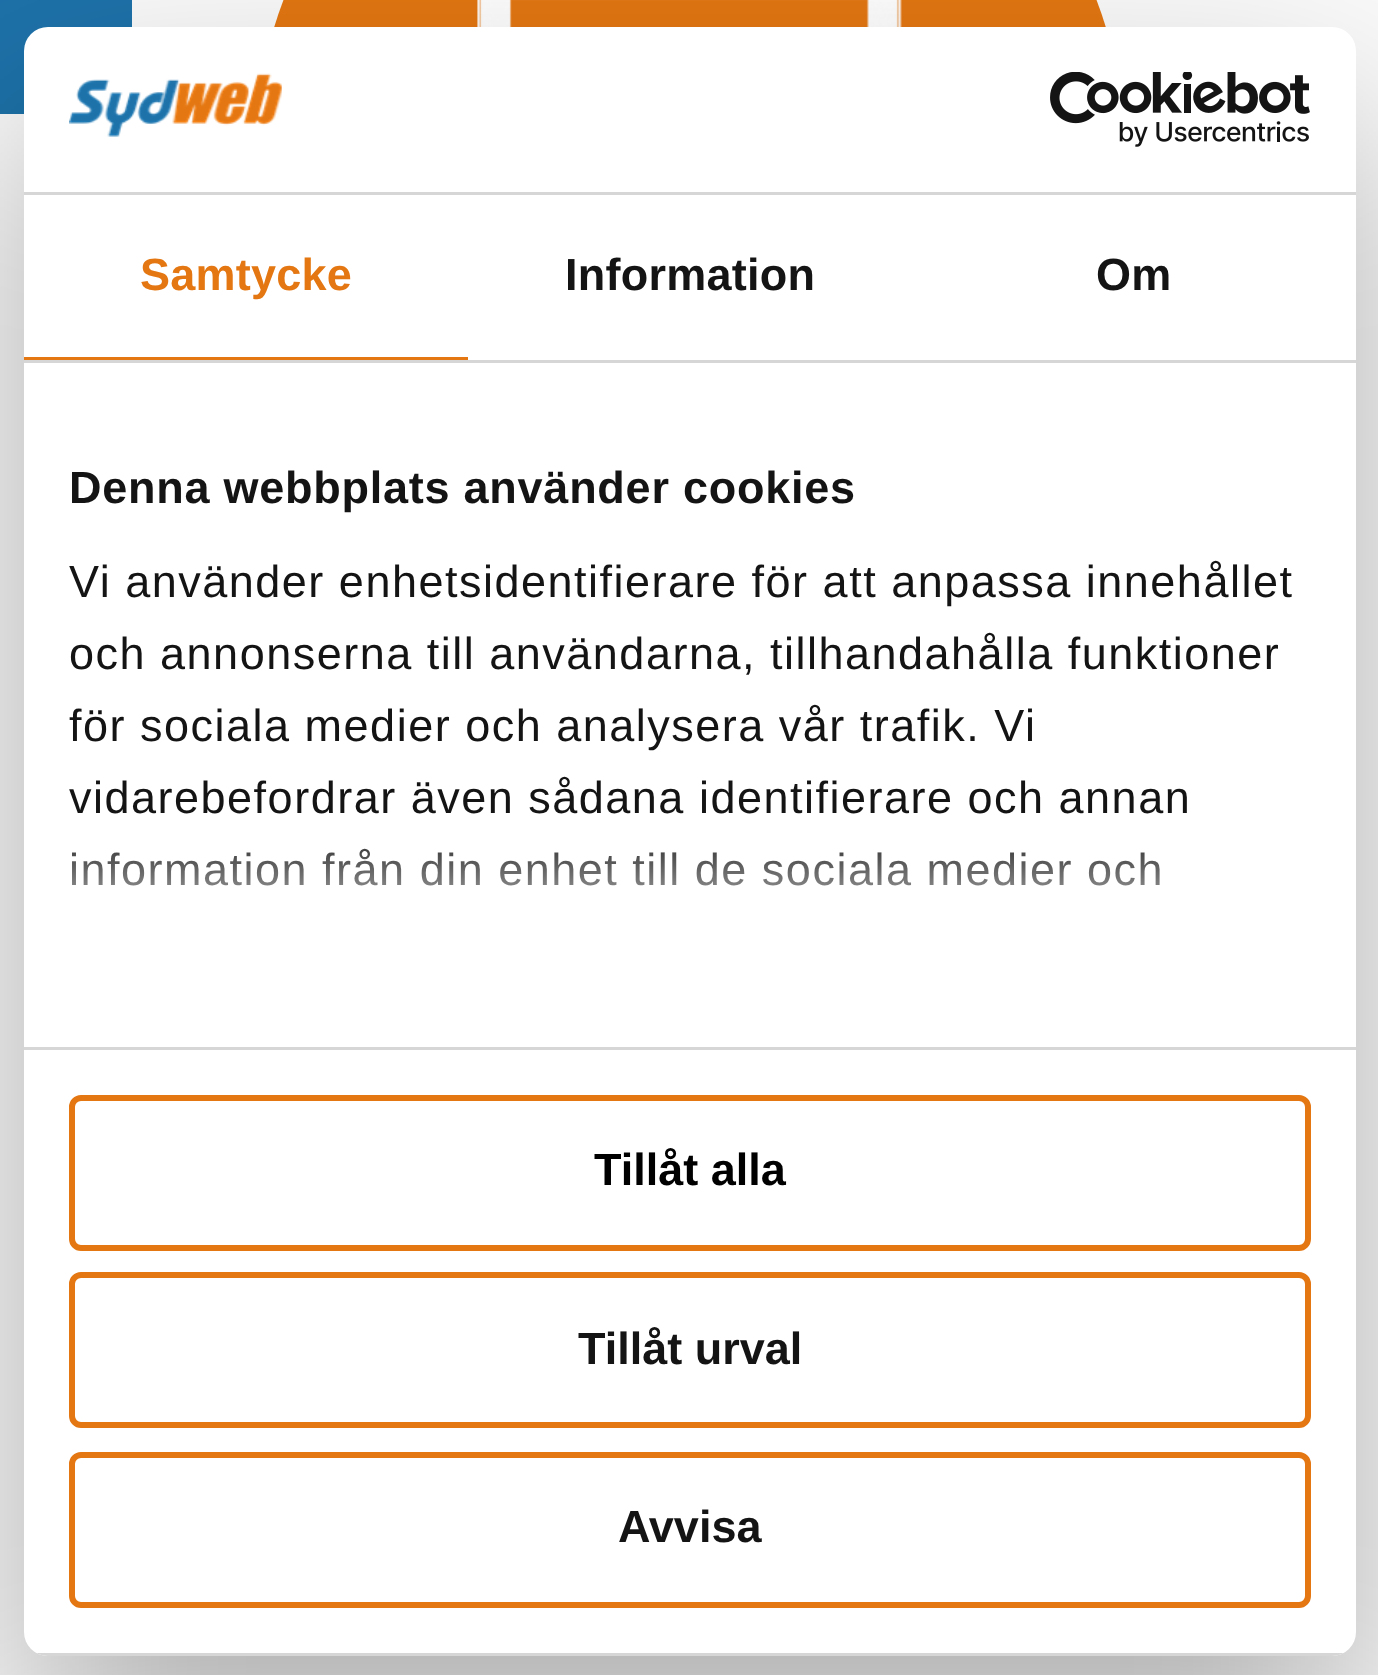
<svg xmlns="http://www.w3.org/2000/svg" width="1378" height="1675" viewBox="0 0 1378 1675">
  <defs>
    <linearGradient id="g1" gradientUnits="userSpaceOnUse" x1="671" y1="1046" x2="671" y2="821"><stop offset="0" stop-color="rgb(255,255,255)"/><stop offset="0.5" stop-color="rgb(255,255,255)" stop-opacity="0.8"/><stop offset="1" stop-color="rgb(255,255,255)" stop-opacity="0"/></linearGradient>
    <clipPath id="clip1"><rect x="24" y="27" width="1332" height="1629" rx="24"/></clipPath>
  </defs>
  <rect width="100%" height="100%" fill="rgb(249,250,249)"/>
  <rect x="0" y="0" width="132" height="114" fill="rgb(29,114,169)"/>
  <rect x="255" y="-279" width="870" height="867" rx="433.5" fill="rgb(228,119,18)"/>
  <image x="477" y="0" width="425" height="27" href="pic1.png"/>
  <rect x="24" y="123" width="1332" height="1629" rx="24" fill="rgba(0,0,0,0.3)" filter="blur(102px)"/>
  <rect x="24" y="27" width="1332" height="1629" rx="24" fill="rgb(255,255,255)"/>
  <rect x="24" y="192" width="1332" height="3" fill="rgb(214,214,214)"/>
  <image x="69" y="73" width="213" height="64" href="pic2.png"/>
  <image x="1050" y="72" width="260" height="75" href="pic3.png"/>
  <rect x="24" y="360" width="1332" height="3" fill="rgb(214,214,214)"/>
  <rect x="24" y="357" width="444" height="3" fill="rgb(228,119,18)"/>
  <text x="140" y="290" font-family="Liberation Sans" font-size="45" font-weight="bold" letter-spacing="0.25" fill="rgb(228,119,18)">Samtycke</text>
  <g font-family="Liberation Sans" font-size="45" font-weight="bold" letter-spacing="0.25" fill="rgb(20,20,20)">
    <text x="565" y="290">Information</text>
    <text x="1096" y="290">Om</text>
  </g>
  <rect x="24" y="1047" width="1332" height="3" fill="rgb(214,214,214)"/>
  <text x="69" y="503" font-family="Liberation Sans" font-size="45" font-weight="bold" letter-spacing="0.75" fill="rgb(20,20,20)">Denna webbplats använder cookies</text>
  <g font-family="Liberation Sans" font-size="45" letter-spacing="1.5" fill="rgb(20,20,20)">
    <text>
      <tspan x="69" y="597">Vi använder enhetsidentifierare för att anpassa innehållet</tspan>
      <tspan x="69" y="669">och annonserna till användarna, tillhandahålla funktioner</tspan>
      <tspan x="69" y="741">för sociala medier och analysera vår trafik. Vi</tspan>
      <tspan x="69" y="813">vidarebefordrar även sådana identifierare och annan</tspan>
      <tspan x="69" y="885">information från din enhet till de sociala medier och</tspan>
    </text>
  </g>
  <rect x="72" y="848" width="1088" height="38" fill="url(#g1)"/>
  <g clip-path="url(#clip1)">
    <rect x="36" y="1653" width="1308" height="3" fill="rgb(214,214,214)"/>
  </g>
  <rect x="72" y="1098" width="1236" height="150" rx="9" fill="none" stroke="rgb(228,119,18)" stroke-width="6"/>
  <text x="594" y="1185" font-family="Liberation Sans" font-size="45" font-weight="bold" fill="rgb(0,0,0)">Tillåt alla</text>
  <rect x="72" y="1275" width="1236" height="150" rx="9" fill="none" stroke="rgb(228,119,18)" stroke-width="6"/>
  <text x="578" y="1364" font-family="Liberation Sans" font-size="45" font-weight="bold" fill="rgb(20,20,20)">Tillåt urval</text>
  <rect x="72" y="1455" width="1236" height="150" rx="9" fill="none" stroke="rgb(228,119,18)" stroke-width="6"/>
  <text x="618" y="1542" font-family="Liberation Sans" font-size="45" font-weight="bold" fill="rgb(20,20,20)">Avvisa</text>
</svg>
